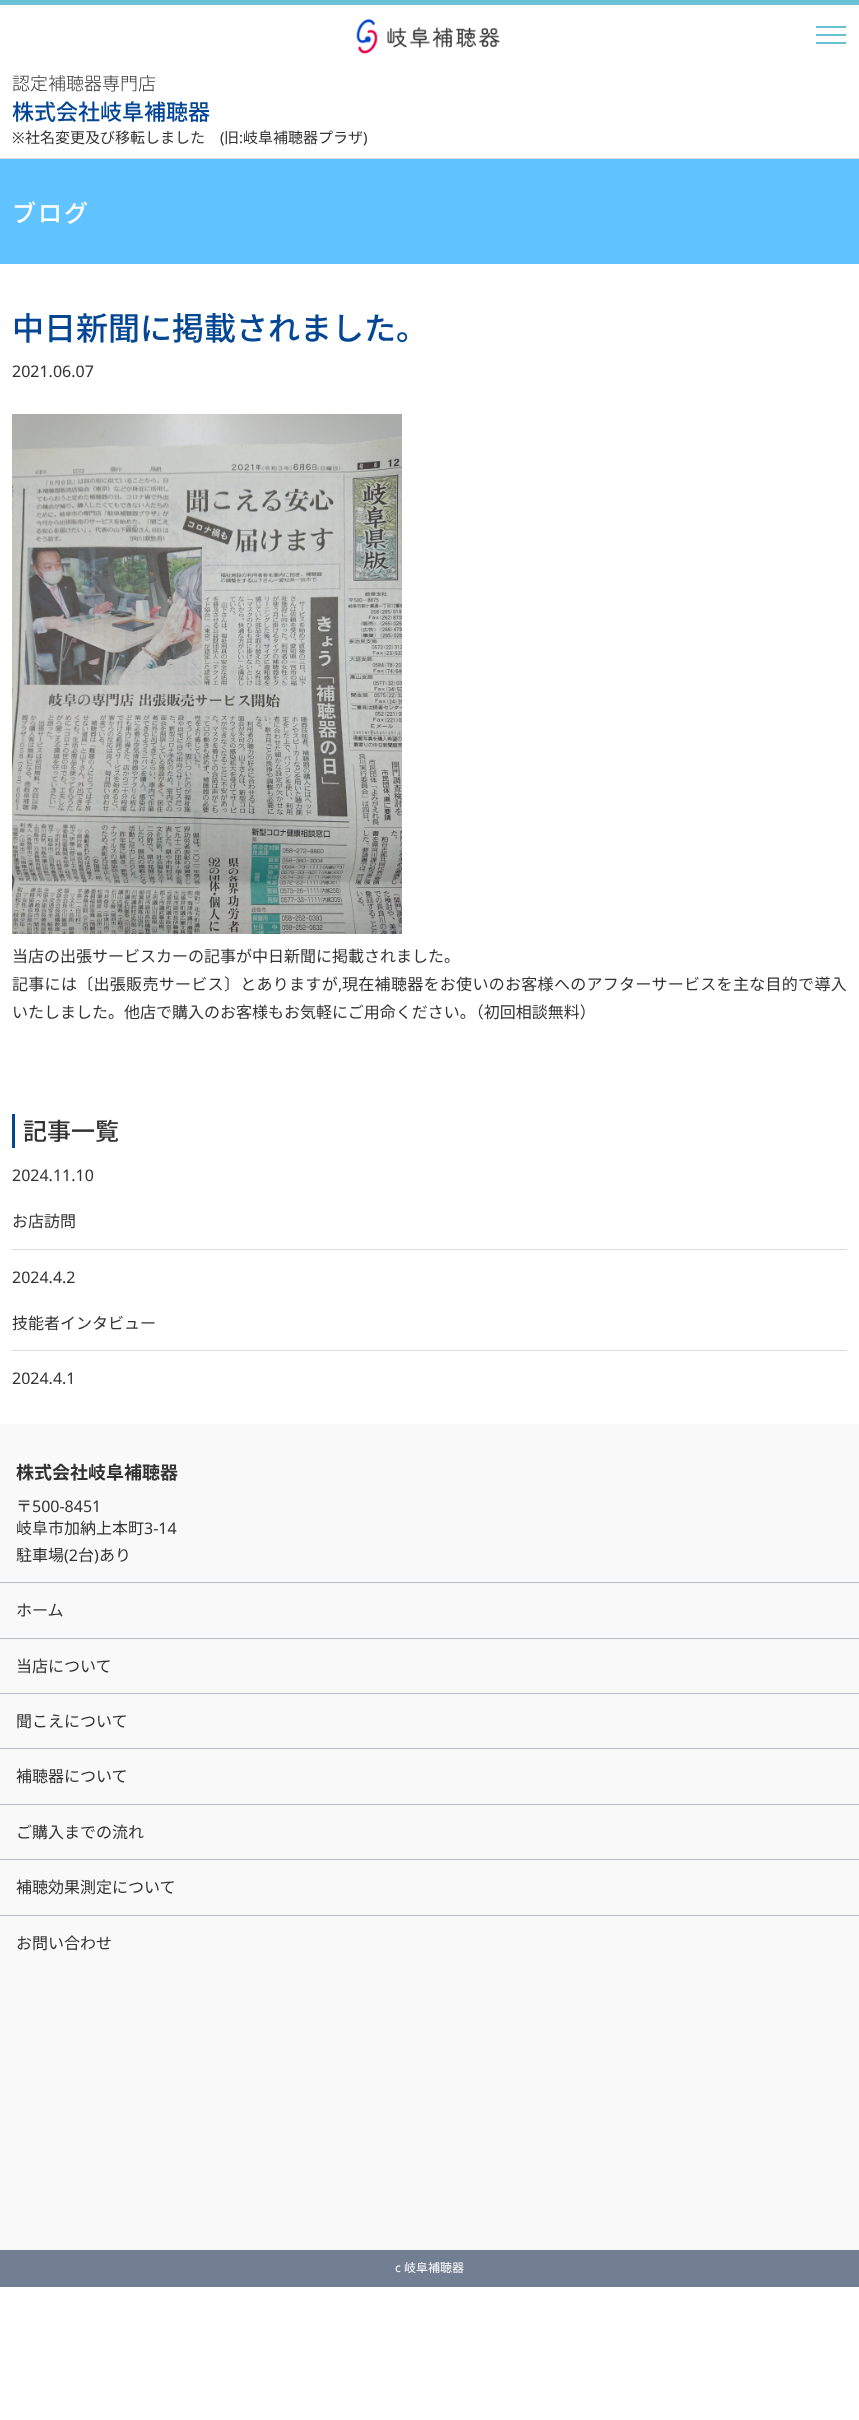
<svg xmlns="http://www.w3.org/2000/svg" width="859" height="2420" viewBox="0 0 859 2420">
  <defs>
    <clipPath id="clip1"><rect x="12" y="1164" width="835" height="220"/></clipPath>
  </defs>
  <rect width="100%" height="100%" fill="rgb(255,255,255)"/>
  <rect x="0" y="0" width="859" height="5" fill="rgb(108,192,214)"/>
  <image x="356" y="19" width="144" height="35" href="pic1.png"/>
  <rect x="816" y="26" width="30" height="2" fill="rgb(108,192,214)"/>
  <rect x="816" y="34" width="30" height="2" fill="rgb(108,192,214)"/>
  <rect x="816" y="42" width="30" height="2" fill="rgb(108,192,214)"/>
  <text x="12" y="90" font-family="Noto Sans CJK JP" font-size="18" font-weight="300" fill="rgb(51,51,51)">認定補聴器専門店</text>
  <text x="12" y="120" font-family="Noto Sans CJK JP" font-size="22" font-weight="500" fill="rgb(3,70,147)">株式会社岐阜補聴器</text>
  <text x="12" y="143" font-family="Noto Sans" font-size="15" fill="rgb(51,51,51)">※</text>
  <text x="25" y="143" font-family="Noto Sans CJK JP" font-size="15" fill="rgb(51,51,51)">社名変更及び移転しました</text>
  <text x="220" y="143" font-family="Noto Sans" font-size="15" fill="rgb(51,51,51)">(</text>
  <text x="224" y="143" font-family="Noto Sans CJK JP" font-size="15" fill="rgb(51,51,51)">旧</text>
  <text x="239" y="143" font-family="Noto Sans" font-size="15" fill="rgb(51,51,51)">:</text>
  <text x="243" y="143" font-family="Noto Sans CJK JP" font-size="15" fill="rgb(51,51,51)">岐阜補聴器プラザ</text>
  <text x="363" y="143" font-family="Noto Sans" font-size="15" fill="rgb(51,51,51)">)</text>
  <rect x="0" y="158" width="859" height="1" fill="rgb(221,221,221)"/>
  <rect x="0" y="159" width="859" height="105" fill="rgb(96,195,255)"/>
  <text x="12" y="222" font-family="Noto Sans CJK JP" font-size="24" font-weight="500" letter-spacing="2" fill="rgb(255,255,255)">ブログ</text>
  <text x="12" y="340" font-family="Noto Sans CJK JP" font-size="32" font-weight="500" fill="rgb(3,70,147)">中日新聞に掲載されました。</text>
  <text x="12" y="377" font-family="Noto Sans" font-size="16" fill="rgb(51,51,51)">2021.06.07</text>
  <image x="12" y="414" width="390" height="520" href="pic2.png"/>
  <text x="12" y="962" font-family="Noto Sans CJK JP" font-size="16" fill="rgb(51,51,51)">当店の出張サービスカーの記事が中日新聞に掲載されました。</text>
  <text x="12" y="990" font-family="Noto Sans CJK JP" font-size="16" letter-spacing="0.3" fill="rgb(51,51,51)">記事には〔出張販売サービス〕とありますが</text>
  <text x="338" y="990" font-family="Noto Sans" font-size="16" letter-spacing="0.3" fill="rgb(51,51,51)">,</text>
  <text x="342" y="990" font-family="Noto Sans CJK JP" font-size="16" letter-spacing="0.3" fill="rgb(51,51,51)">現在補聴器をお使いのお客様へのアフターサービスを主な目的で導入</text>
  <text x="12" y="1018" font-family="Noto Sans CJK JP" font-size="16" fill="rgb(51,51,51)">いたしました。他店で購入のお客様もお気軽にご用命ください。（初回相談無料）</text>
  <rect x="12" y="1114" width="3" height="34" fill="rgb(3,70,147)"/>
  <text x="23" y="1140" font-family="Noto Sans CJK JP" font-size="24" font-weight="500" fill="rgb(51,51,51)">記事一覧</text>
  <rect x="12" y="1249" width="835" height="1" fill="rgb(221,221,221)"/>
  <text x="12" y="1181" font-family="Noto Sans" font-size="16" fill="rgb(51,51,51)">2024.11.10</text>
  <text x="12" y="1227" font-family="Noto Sans CJK JP" font-size="16" fill="rgb(51,51,51)">お店訪問</text>
  <rect x="12" y="1350" width="835" height="1" fill="rgb(221,221,221)"/>
  <text x="12" y="1283" font-family="Noto Sans" font-size="16" fill="rgb(51,51,51)">2024.4.2</text>
  <text x="12" y="1329" font-family="Noto Sans CJK JP" font-size="16" fill="rgb(51,51,51)">技能者インタビュー</text>
  <g clip-path="url(#clip1)">
    <text x="12" y="1384" font-family="Noto Sans" font-size="16" fill="rgb(51,51,51)">2024.4.1</text>
  </g>
  <rect x="0" y="1424" width="859" height="826" fill="rgb(249,249,249)"/>
  <text x="16" y="1479" font-family="Noto Sans CJK JP" font-size="18" font-weight="bold" fill="rgb(51,51,51)">株式会社岐阜補聴器</text>
  <text x="16" y="1512" font-family="Noto Sans CJK JP" font-size="16" fill="rgb(51,51,51)">〒</text>
  <text x="32" y="1512" font-family="Noto Sans" font-size="16" fill="rgb(51,51,51)">500-8451</text>
  <text x="16" y="1534" font-family="Noto Sans CJK JP" font-size="16" fill="rgb(51,51,51)">岐阜市加納上本町</text>
  <text x="144" y="1534" font-family="Noto Sans" font-size="16" fill="rgb(51,51,51)">3-14</text>
  <text x="16" y="1561" font-family="Noto Sans CJK JP" font-size="16" fill="rgb(51,51,51)">駐車場</text>
  <text x="64" y="1561" font-family="Noto Sans" font-size="16" fill="rgb(51,51,51)">(2</text>
  <text x="78" y="1561" font-family="Noto Sans CJK JP" font-size="16" fill="rgb(51,51,51)">台</text>
  <text x="94" y="1561" font-family="Noto Sans" font-size="16" fill="rgb(51,51,51)">)</text>
  <text x="99" y="1561" font-family="Noto Sans CJK JP" font-size="16" fill="rgb(51,51,51)">あり</text>
  <rect x="0" y="1582" width="859" height="1" fill="rgb(184,188,201)"/>
  <rect x="0" y="1638" width="859" height="1" fill="rgb(184,188,201)"/>
  <text x="16" y="1616" font-family="Noto Sans CJK JP" font-size="16" fill="rgb(51,51,51)">ホーム</text>
  <rect x="0" y="1693" width="859" height="1" fill="rgb(184,188,201)"/>
  <text x="16" y="1672" font-family="Noto Sans CJK JP" font-size="16" fill="rgb(51,51,51)">当店について</text>
  <rect x="0" y="1748" width="859" height="1" fill="rgb(184,188,201)"/>
  <text x="16" y="1727" font-family="Noto Sans CJK JP" font-size="16" fill="rgb(51,51,51)">聞こえについて</text>
  <rect x="0" y="1804" width="859" height="1" fill="rgb(184,188,201)"/>
  <text x="16" y="1782" font-family="Noto Sans CJK JP" font-size="16" fill="rgb(51,51,51)">補聴器について</text>
  <rect x="0" y="1859" width="859" height="1" fill="rgb(184,188,201)"/>
  <text x="16" y="1838" font-family="Noto Sans CJK JP" font-size="16" fill="rgb(51,51,51)">ご購入までの流れ</text>
  <rect x="0" y="1915" width="859" height="1" fill="rgb(184,188,201)"/>
  <g font-family="Noto Sans CJK JP" font-size="16" fill="rgb(51,51,51)">
    <text x="16" y="1893">補聴効果測定について</text>
    <text x="16" y="1949">お問い合わせ</text>
  </g>
  <rect x="0" y="2250" width="859" height="37" fill="rgb(114,126,146)"/>
  <text x="395" y="2272" font-family="Noto Sans" font-size="12" fill="rgb(255,255,255)">c</text>
  <text x="404" y="2272" font-family="Noto Sans CJK JP" font-size="12" fill="rgb(255,255,255)">岐阜補聴器</text>
</svg>
